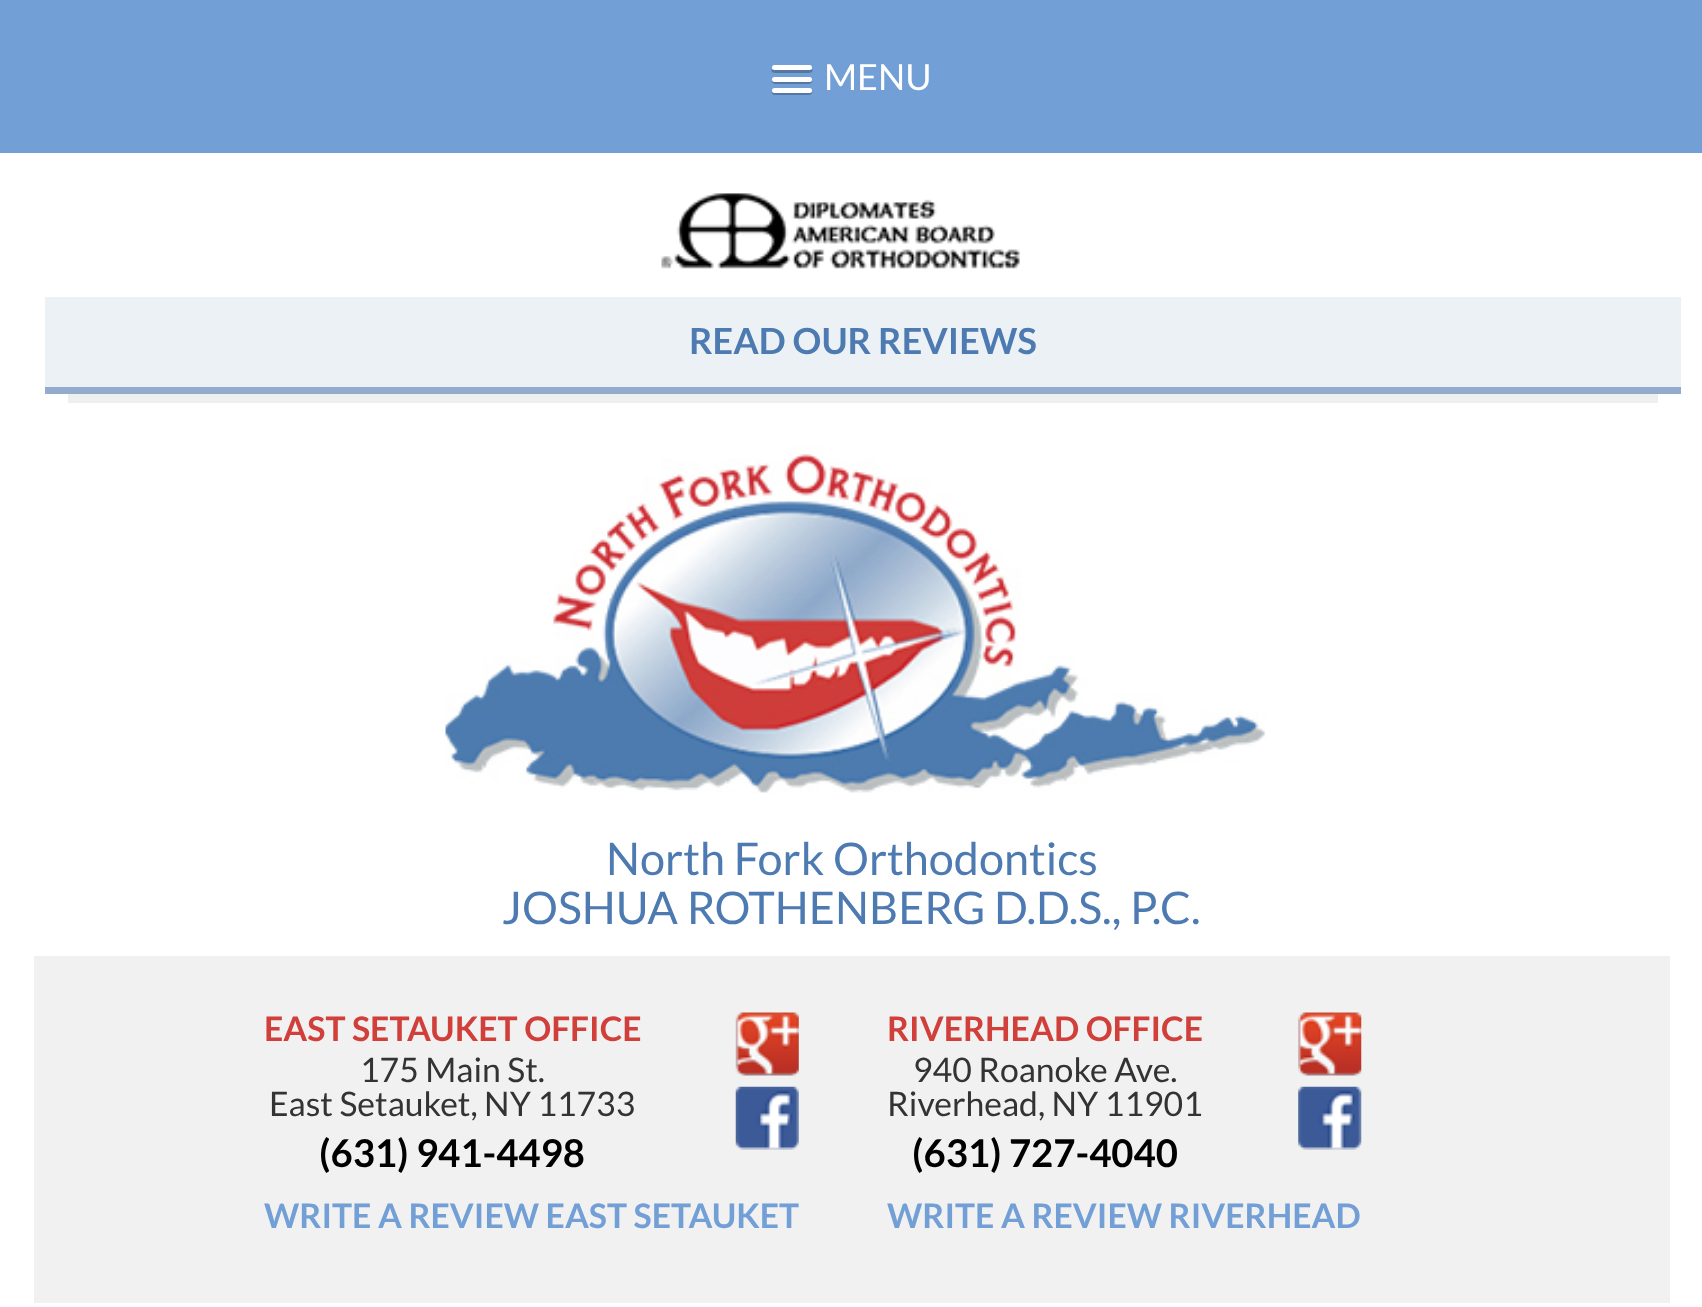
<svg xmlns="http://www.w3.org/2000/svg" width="1702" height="1307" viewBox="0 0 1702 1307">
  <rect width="100%" height="100%" fill="rgb(255,255,255)"/>
  <rect x="0" y="0" width="1702" height="153" fill="rgb(114,159,213)"/>
  <path d="M772 69C769 74 780 73 780 73H804C804 73 815 74 812 69C810 70 774 70 772 69Z" fill="rgb(86,119,160)"/>
  <rect x="772" y="65" width="40" height="5" rx="2.5" fill="rgb(255,255,255)"/>
  <path d="M772 80C770 85 780 84 780 84H804C804 84 814 85 812 80C810 82 774 82 772 80Z" fill="rgb(86,119,160)"/>
  <rect x="772" y="77" width="40" height="5" rx="2.5" fill="rgb(255,255,255)"/>
  <path d="M772 91C770 96 779 95 780 95H804C805 95 814 96 812 91L810 92H774Z" fill="rgb(86,119,160)"/>
  <rect x="772" y="88" width="40" height="5" rx="2.5" fill="rgb(255,255,255)"/>
  <text x="824" y="90" font-family="Lato" font-size="36" fill="rgb(255,255,255)">MENU</text>
  <image x="661" y="193" width="359" height="76" href="pic1.png"/>
  <rect x="68" y="394" width="1590" height="9" fill="rgb(239,239,239)"/>
  <rect x="45" y="297" width="1636" height="90" fill="rgb(236,241,246)"/>
  <rect x="45" y="387" width="1636" height="7" fill="rgb(147,172,206)"/>
  <text x="689" y="354" font-family="Lato" font-size="36" font-weight="bold" fill="rgb(76,122,177)">READ OUR REVIEWS</text>
  <image x="445" y="446" width="821" height="347" href="pic2.png"/>
  <g font-family="Lato" font-size="45" fill="rgb(76,122,177)">
    <text x="606" y="875">North Fork Orthodontics</text>
    <text x="502" y="924">JOSHUA ROTHENBERG D.D.S., P.C.</text>
  </g>
  <rect x="34" y="956" width="1636" height="347" fill="rgb(241,241,241)"/>
  <image x="735" y="1012" width="64" height="64" href="pic3.png"/>
  <image x="735" y="1086" width="64" height="64" href="pic4.png"/>
  <text x="264" y="1041" font-family="Lato" font-size="33.75" font-weight="bold" fill="rgb(209,63,59)">EAST SETAUKET OFFICE</text>
  <g font-family="Lato" font-size="33.75" fill="rgb(51,51,51)">
    <text x="360" y="1082">175 Main St.</text>
    <text x="269" y="1116">East Setauket, NY 11733</text>
  </g>
  <text x="319" y="1167" font-family="Lato" font-size="38.25" font-weight="bold" fill="rgb(0,0,0)">(631) 941-4498</text>
  <text x="264" y="1228" font-family="Lato" font-size="33.75" font-weight="bold" fill="rgb(114,159,213)">WRITE A REVIEW EAST SETAUKET</text>
  <image x="1298" y="1012" width="64" height="64" href="pic5.png"/>
  <image x="1298" y="1086" width="64" height="64" href="pic6.png"/>
  <text x="887" y="1041" font-family="Lato" font-size="33.75" font-weight="bold" fill="rgb(209,63,59)">RIVERHEAD OFFICE</text>
  <g font-family="Lato" font-size="33.75" fill="rgb(51,51,51)">
    <text x="913" y="1082">940 Roanoke Ave.</text>
    <text x="887" y="1116">Riverhead, NY 11901</text>
  </g>
  <text x="912" y="1167" font-family="Lato" font-size="38.25" font-weight="bold" fill="rgb(0,0,0)">(631) 727-4040</text>
  <text x="887" y="1228" font-family="Lato" font-size="33.75" font-weight="bold" fill="rgb(114,159,213)">WRITE A REVIEW RIVERHEAD</text>
</svg>
